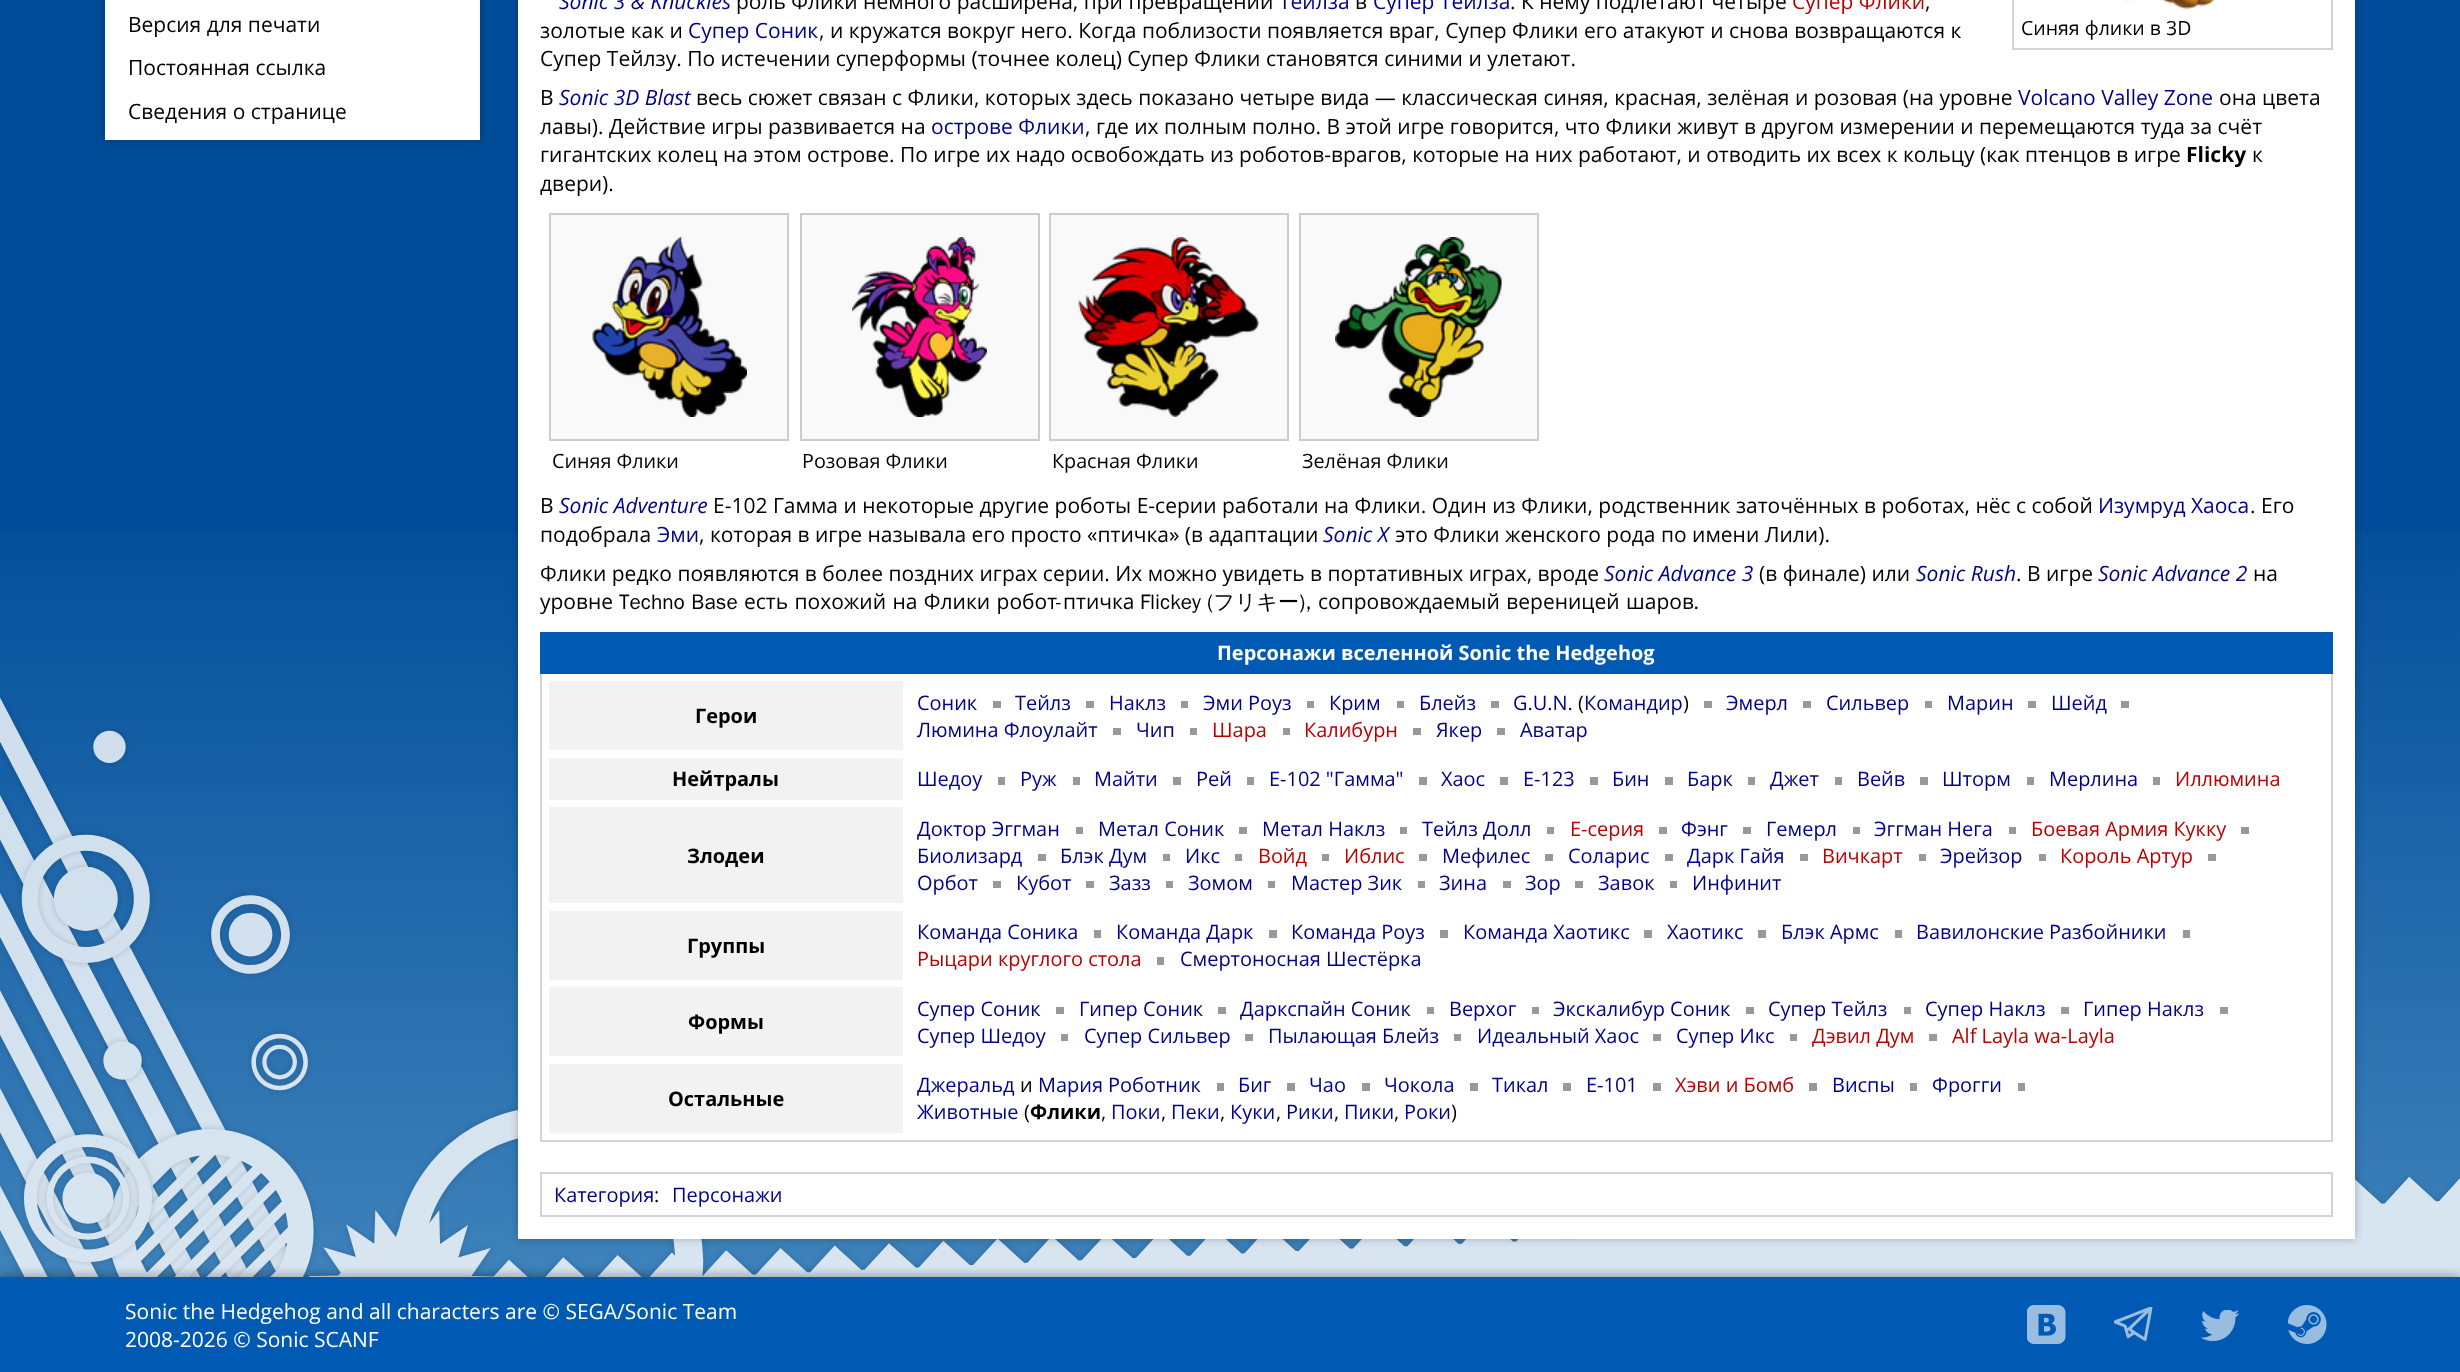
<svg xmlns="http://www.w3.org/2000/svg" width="2460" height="1372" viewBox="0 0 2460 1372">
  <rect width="100%" height="100%" fill="rgb(0,76,153)"/>
  <image x="0" y="532" width="2460" height="745" href="pic1.png"/>
  <rect x="105" y="-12" width="375" height="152" fill="rgba(0,0,0,0.25)" filter="blur(4px)"/>
  <rect x="105" y="0" width="375" height="140" fill="rgb(255,255,255)"/>
  <g font-family="Open Sans" font-size="21" fill="rgb(0,0,0)">
    <text x="128" y="32">Версия для печати</text>
    <text x="128" y="75">Постоянная ссылка</text>
    <text x="128" y="119">Сведения о странице</text>
  </g>
  <rect x="518" y="-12" width="1837" height="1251" fill="rgba(0,0,0,0.25)" filter="blur(4px)"/>
  <rect x="518" y="0" width="1837" height="1239" fill="rgb(255,255,255)"/>
  <text x="559" y="9" font-family="Open Sans" font-size="21" font-style="italic" fill="rgb(0,0,136)">Sonic 3 &amp; Knuckles</text>
  <text x="736" y="9" font-family="Open Sans" font-size="21" fill="rgb(0,0,0)">роль Флики немного расширена, при превращении</text>
  <text x="1279" y="9" font-family="Open Sans" font-size="21" fill="rgb(0,0,136)">Тейлза</text>
  <text x="1355" y="9" font-family="Open Sans" font-size="21" fill="rgb(0,0,0)">в</text>
  <text x="1373" y="9" font-family="Open Sans" font-size="21" fill="rgb(0,0,136)">Супер Тейлза</text>
  <text x="1510" y="9" font-family="Open Sans" font-size="21" fill="rgb(0,0,0)">. К нему подлетают четыре</text>
  <text x="1792" y="9" font-family="Open Sans" font-size="21" fill="rgb(186,0,0)">Супер Флики</text>
  <g font-family="Open Sans" font-size="21" fill="rgb(0,0,0)">
    <text x="1925" y="9">,</text>
    <text x="540" y="38">золотые как и</text>
  </g>
  <text x="688" y="38" font-family="Open Sans" font-size="21" fill="rgb(0,0,136)">Супер Соник</text>
  <g font-family="Open Sans" font-size="21" fill="rgb(0,0,0)">
    <text x="819" y="38">, и кружатся вокруг него. Когда поблизости появляется враг, Супер Флики его атакуют и снова возвращаются к</text>
    <text x="540" y="66">Супер Тейлзу. По истечении суперформы (точнее колец) Супер Флики становятся синими и улетают.</text>
  </g>
  <rect x="2013" y="-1" width="319" height="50" fill="none" stroke="rgb(211,211,211)" stroke-width="2"/>
  <image x="2124" y="0" width="92" height="10" href="pic2.png"/>
  <text x="2021" y="35" font-family="Open Sans" font-size="19.5" fill="rgb(0,0,0)">Синяя флики в 3D</text>
  <text x="540" y="105" font-family="Open Sans" font-size="21" fill="rgb(0,0,0)">В</text>
  <text x="559" y="105" font-family="Open Sans" font-size="21" font-style="italic" fill="rgb(0,0,136)">Sonic 3D Blast</text>
  <text x="696" y="105" font-family="Open Sans" font-size="21" fill="rgb(0,0,0)">весь сюжет связан с Флики, которых здесь показано четыре вида — классическая синяя, красная, зелёная и розовая (на уровне</text>
  <text x="2018" y="105" font-family="Open Sans" font-size="21" fill="rgb(0,0,136)">Volcano Valley Zone</text>
  <g font-family="Open Sans" font-size="21" fill="rgb(0,0,0)">
    <text x="2219" y="105">она цвета</text>
    <text x="540" y="134">лавы). Действие игры развивается на</text>
  </g>
  <text x="931" y="134" font-family="Open Sans" font-size="21" fill="rgb(0,0,136)">острове Флики</text>
  <g font-family="Open Sans" font-size="21" fill="rgb(0,0,0)">
    <text x="1085" y="134">, где их полным полно. В этой игре говорится, что Флики живут в другом измерении и перемещаются туда за счёт</text>
    <text x="540" y="162">гигантских колец на этом острове. По игре их надо освобождать из роботов-врагов, которые на них работают, и отводить их всех к кольцу (как птенцов в игре</text>
  </g>
  <text x="2186" y="162" font-family="Open Sans" font-size="21" font-weight="bold" fill="rgb(0,0,0)">Flicky</text>
  <g font-family="Open Sans" font-size="21" fill="rgb(0,0,0)">
    <text x="2252" y="162">к</text>
    <text x="540" y="191">двери).</text>
  </g>
  <rect x="550" y="214" width="238" height="226" fill="rgb(249,249,249)" stroke="rgb(204,204,204)" stroke-width="2"/>
  <image x="592" y="237" width="155" height="180" href="pic3.png"/>
  <text x="552" y="468" font-family="Open Sans" font-size="19.75" fill="rgb(0,0,0)">Синяя Флики</text>
  <rect x="801" y="214" width="238" height="226" fill="rgb(249,249,249)" stroke="rgb(204,204,204)" stroke-width="2"/>
  <image x="852" y="237" width="135" height="180" href="pic4.png"/>
  <text x="802" y="468" font-family="Open Sans" font-size="19.75" fill="rgb(0,0,0)">Розовая Флики</text>
  <rect x="1050" y="214" width="238" height="226" fill="rgb(249,249,249)" stroke="rgb(204,204,204)" stroke-width="2"/>
  <image x="1078" y="237" width="181" height="180" href="pic5.png"/>
  <text x="1052" y="468" font-family="Open Sans" font-size="19.75" fill="rgb(0,0,0)">Красная Флики</text>
  <rect x="1300" y="214" width="238" height="226" fill="rgb(249,249,249)" stroke="rgb(204,204,204)" stroke-width="2"/>
  <image x="1335" y="237" width="167" height="180" href="pic6.png"/>
  <text x="1302" y="468" font-family="Open Sans" font-size="19.75" fill="rgb(0,0,0)">Зелёная Флики</text>
  <text x="540" y="513" font-family="Open Sans" font-size="21" fill="rgb(0,0,0)">В</text>
  <text x="559" y="513" font-family="Open Sans" font-size="21" font-style="italic" fill="rgb(0,0,136)">Sonic Adventure</text>
  <text x="713" y="513" font-family="Open Sans" font-size="21" fill="rgb(0,0,0)">E-102 Гамма и некоторые другие роботы E-серии работали на Флики. Один из Флики, родственник заточённых в роботах, нёс с собой</text>
  <text x="2098" y="513" font-family="Open Sans" font-size="21" fill="rgb(0,0,136)">Изумруд Хаоса</text>
  <g font-family="Open Sans" font-size="21" fill="rgb(0,0,0)">
    <text x="2250" y="513">. Его</text>
    <text x="540" y="542">подобрала</text>
  </g>
  <text x="657" y="542" font-family="Open Sans" font-size="21" fill="rgb(0,0,136)">Эми</text>
  <text x="699" y="542" font-family="Open Sans" font-size="21" fill="rgb(0,0,0)">, которая в игре называла его просто «птичка» (в адаптации</text>
  <text x="1323" y="542" font-family="Open Sans" font-size="21" font-style="italic" fill="rgb(0,0,136)">Sonic X</text>
  <g font-family="Open Sans" font-size="21" fill="rgb(0,0,0)">
    <text x="1395" y="542">это Флики женского рода по имени Лили).</text>
    <text x="540" y="581">Флики редко появляются в более поздних играх серии. Их можно увидеть в портативных играх, вроде</text>
  </g>
  <text x="1604" y="581" font-family="Open Sans" font-size="21" font-style="italic" fill="rgb(0,0,136)">Sonic Advance 3</text>
  <text x="1759" y="581" font-family="Open Sans" font-size="21" fill="rgb(0,0,0)">(в финале) или</text>
  <text x="1916" y="581" font-family="Open Sans" font-size="21" font-style="italic" fill="rgb(0,0,136)">Sonic Rush</text>
  <text x="2016" y="581" font-family="Open Sans" font-size="21" fill="rgb(0,0,0)">. В игре</text>
  <text x="2098" y="581" font-family="Open Sans" font-size="21" font-style="italic" fill="rgb(0,0,136)">Sonic Advance 2</text>
  <g font-family="Open Sans" font-size="21" fill="rgb(0,0,0)">
    <text x="2253" y="581">на</text>
    <text x="540" y="609">уровне</text>
  </g>
  <text x="619" y="609" font-family="WenQuanYi Zen Hei" font-size="21" font-weight="500" fill="rgb(0,0,0)">Techno Base</text>
  <text x="744" y="609" word-spacing="1" font-family="Open Sans" font-size="21" fill="rgb(0,0,0)">есть похожий на Флики робот</text>
  <text x="1056" y="609" font-family="WenQuanYi Zen Hei" font-size="21" font-weight="500" fill="rgb(0,0,0)">-</text>
  <text x="1063" y="609" font-family="Open Sans" font-size="21" fill="rgb(0,0,0)">птичка</text>
  <text x="1140" y="609" font-family="WenQuanYi Zen Hei" font-size="21" font-weight="500" fill="rgb(0,0,0)">Flickey (フリキー),</text>
  <text x="1318" y="609" word-spacing="1" font-family="Open Sans" font-size="21" fill="rgb(0,0,0)">сопровождаемый вереницей шаров</text>
  <text x="1693" y="609" font-family="WenQuanYi Zen Hei" font-size="21" font-weight="500" fill="rgb(0,0,0)">.</text>
  <rect x="540" y="632" width="1793" height="42" fill="rgb(0,89,179)"/>
  <text x="1217" y="660" font-family="Open Sans" font-size="19.95" font-weight="bold" fill="rgb(255,255,255)">Персонажи вселенной Sonic the Hedgehog</text>
  <rect x="2331" y="674" width="2" height="468" fill="rgb(211,211,211)"/>
  <rect x="540" y="1140" width="1793" height="2" fill="rgb(211,211,211)"/>
  <rect x="540" y="674" width="2" height="468" fill="rgb(211,211,211)"/>
  <rect x="549" y="681" width="354" height="69" fill="rgb(242,242,242)"/>
  <text x="695" y="723" font-family="Open Sans" font-size="19.95" font-weight="bold" fill="rgb(0,0,0)">Герои</text>
  <text x="917" y="710" font-family="Open Sans" font-size="19.95" fill="rgb(0,0,136)">Соник</text>
  <rect x="993" y="701" width="8" height="7" fill="rgb(153,153,153)"/>
  <text x="1015" y="710" font-family="Open Sans" font-size="19.95" fill="rgb(0,0,136)">Тейлз</text>
  <rect x="1086" y="701" width="8" height="7" fill="rgb(153,153,153)"/>
  <text x="1109" y="710" font-family="Open Sans" font-size="19.95" fill="rgb(0,0,136)">Наклз</text>
  <rect x="1181" y="701" width="7" height="7" fill="rgb(153,153,153)"/>
  <text x="1203" y="710" font-family="Open Sans" font-size="19.95" fill="rgb(0,0,136)">Эми Роуз</text>
  <rect x="1307" y="701" width="7" height="7" fill="rgb(153,153,153)"/>
  <text x="1329" y="710" font-family="Open Sans" font-size="19.95" fill="rgb(0,0,136)">Крим</text>
  <rect x="1397" y="701" width="7" height="7" fill="rgb(153,153,153)"/>
  <text x="1419" y="710" font-family="Open Sans" font-size="19.95" fill="rgb(0,0,136)">Блейз</text>
  <rect x="1491" y="701" width="8" height="7" fill="rgb(153,153,153)"/>
  <text x="1513" y="710" font-family="Open Sans" font-size="19.95" fill="rgb(0,0,136)">G.U.N.</text>
  <text x="1578" y="710" font-family="Open Sans" font-size="19.95" fill="rgb(0,0,0)">(</text>
  <text x="1584" y="710" font-family="Open Sans" font-size="19.95" fill="rgb(0,0,136)">Командир</text>
  <text x="1683" y="710" font-family="Open Sans" font-size="19.95" fill="rgb(0,0,0)">)</text>
  <rect x="1704" y="701" width="8" height="7" fill="rgb(153,153,153)"/>
  <text x="1726" y="710" font-family="Open Sans" font-size="19.95" fill="rgb(0,0,136)">Эмерл</text>
  <rect x="1803" y="701" width="8" height="7" fill="rgb(153,153,153)"/>
  <text x="1826" y="710" font-family="Open Sans" font-size="19.95" fill="rgb(0,0,136)">Сильвер</text>
  <rect x="1925" y="701" width="7" height="7" fill="rgb(153,153,153)"/>
  <text x="1947" y="710" font-family="Open Sans" font-size="19.95" fill="rgb(0,0,136)">Марин</text>
  <rect x="2028" y="701" width="8" height="7" fill="rgb(153,153,153)"/>
  <text x="2051" y="710" font-family="Open Sans" font-size="19.95" fill="rgb(0,0,136)">Шейд</text>
  <rect x="2121" y="701" width="8" height="7" fill="rgb(153,153,153)"/>
  <text x="917" y="737" font-family="Open Sans" font-size="19.95" fill="rgb(0,0,136)">Люмина Флоулайт</text>
  <rect x="1113" y="728" width="8" height="7" fill="rgb(153,153,153)"/>
  <text x="1136" y="737" font-family="Open Sans" font-size="19.95" fill="rgb(0,0,136)">Чип</text>
  <rect x="1190" y="728" width="7" height="7" fill="rgb(153,153,153)"/>
  <text x="1212" y="737" font-family="Open Sans" font-size="19.95" fill="rgb(186,0,0)">Шара</text>
  <rect x="1283" y="728" width="7" height="7" fill="rgb(153,153,153)"/>
  <text x="1304" y="737" font-family="Open Sans" font-size="19.95" fill="rgb(186,0,0)">Калибурн</text>
  <rect x="1413" y="728" width="8" height="7" fill="rgb(153,153,153)"/>
  <text x="1436" y="737" font-family="Open Sans" font-size="19.95" fill="rgb(0,0,136)">Якер</text>
  <rect x="1497" y="728" width="8" height="7" fill="rgb(153,153,153)"/>
  <text x="1520" y="737" font-family="Open Sans" font-size="19.95" fill="rgb(0,0,136)">Аватар</text>
  <rect x="549" y="758" width="354" height="42" fill="rgb(242,242,242)"/>
  <text x="672" y="786" font-family="Open Sans" font-size="19.95" font-weight="bold" fill="rgb(0,0,0)">Нейтралы</text>
  <text x="917" y="786" font-family="Open Sans" font-size="19.95" fill="rgb(0,0,136)">Шедоу</text>
  <rect x="998" y="777" width="7" height="8" fill="rgb(153,153,153)"/>
  <text x="1020" y="786" font-family="Open Sans" font-size="19.95" fill="rgb(0,0,136)">Руж</text>
  <rect x="1073" y="777" width="7" height="8" fill="rgb(153,153,153)"/>
  <text x="1094" y="786" font-family="Open Sans" font-size="19.95" fill="rgb(0,0,136)">Майти</text>
  <rect x="1173" y="777" width="8" height="8" fill="rgb(153,153,153)"/>
  <text x="1196" y="786" font-family="Open Sans" font-size="19.95" fill="rgb(0,0,136)">Рей</text>
  <rect x="1247" y="777" width="7" height="8" fill="rgb(153,153,153)"/>
  <text x="1269" y="786" font-family="Open Sans" font-size="19.95" fill="rgb(0,0,136)">E-102 "Гамма"</text>
  <rect x="1419" y="777" width="8" height="8" fill="rgb(153,153,153)"/>
  <text x="1441" y="786" font-family="Open Sans" font-size="19.95" fill="rgb(0,0,136)">Хаос</text>
  <rect x="1500" y="777" width="8" height="8" fill="rgb(153,153,153)"/>
  <text x="1523" y="786" font-family="Open Sans" font-size="19.95" fill="rgb(0,0,136)">E-123</text>
  <rect x="1590" y="777" width="8" height="8" fill="rgb(153,153,153)"/>
  <text x="1612" y="786" font-family="Open Sans" font-size="19.95" fill="rgb(0,0,136)">Бин</text>
  <rect x="1665" y="777" width="8" height="8" fill="rgb(153,153,153)"/>
  <text x="1687" y="786" font-family="Open Sans" font-size="19.95" fill="rgb(0,0,136)">Барк</text>
  <rect x="1748" y="777" width="7" height="8" fill="rgb(153,153,153)"/>
  <text x="1770" y="786" font-family="Open Sans" font-size="19.95" fill="rgb(0,0,136)">Джет</text>
  <rect x="1835" y="777" width="7" height="8" fill="rgb(153,153,153)"/>
  <text x="1857" y="786" font-family="Open Sans" font-size="19.95" fill="rgb(0,0,136)">Вейв</text>
  <rect x="1920" y="777" width="8" height="8" fill="rgb(153,153,153)"/>
  <text x="1942" y="786" font-family="Open Sans" font-size="19.95" fill="rgb(0,0,136)">Шторм</text>
  <rect x="2027" y="777" width="7" height="8" fill="rgb(153,153,153)"/>
  <text x="2049" y="786" font-family="Open Sans" font-size="19.95" fill="rgb(0,0,136)">Мерлина</text>
  <rect x="2153" y="777" width="7" height="8" fill="rgb(153,153,153)"/>
  <text x="2175" y="786" font-family="Open Sans" font-size="19.95" fill="rgb(186,0,0)">Иллюмина</text>
  <rect x="549" y="807" width="354" height="96" fill="rgb(242,242,242)"/>
  <text x="687" y="863" font-family="Open Sans" font-size="19.95" font-weight="bold" fill="rgb(0,0,0)">Злодеи</text>
  <text x="917" y="836" font-family="Open Sans" font-size="19.95" fill="rgb(0,0,136)">Доктор Эггман</text>
  <rect x="1076" y="827" width="7" height="7" fill="rgb(153,153,153)"/>
  <text x="1098" y="836" font-family="Open Sans" font-size="19.95" fill="rgb(0,0,136)">Метал Соник</text>
  <rect x="1239" y="827" width="8" height="7" fill="rgb(153,153,153)"/>
  <text x="1262" y="836" font-family="Open Sans" font-size="19.95" fill="rgb(0,0,136)">Метал Наклз</text>
  <rect x="1400" y="827" width="7" height="7" fill="rgb(153,153,153)"/>
  <text x="1422" y="836" font-family="Open Sans" font-size="19.95" fill="rgb(0,0,136)">Тейлз Долл</text>
  <rect x="1547" y="827" width="7" height="7" fill="rgb(153,153,153)"/>
  <text x="1570" y="836" font-family="Open Sans" font-size="19.95" fill="rgb(186,0,0)">E-серия</text>
  <rect x="1659" y="827" width="8" height="7" fill="rgb(153,153,153)"/>
  <text x="1681" y="836" font-family="Open Sans" font-size="19.95" fill="rgb(0,0,136)">Фэнг</text>
  <rect x="1743" y="827" width="8" height="7" fill="rgb(153,153,153)"/>
  <text x="1766" y="836" font-family="Open Sans" font-size="19.95" fill="rgb(0,0,136)">Гемерл</text>
  <rect x="1853" y="827" width="7" height="7" fill="rgb(153,153,153)"/>
  <text x="1874" y="836" font-family="Open Sans" font-size="19.95" fill="rgb(0,0,136)">Эггман Нега</text>
  <rect x="2009" y="827" width="7" height="7" fill="rgb(153,153,153)"/>
  <text x="2031" y="836" font-family="Open Sans" font-size="19.95" fill="rgb(186,0,0)">Боевая Армия Кукку</text>
  <rect x="2241" y="827" width="8" height="7" fill="rgb(153,153,153)"/>
  <text x="917" y="863" font-family="Open Sans" font-size="19.95" fill="rgb(0,0,136)">Биолизард</text>
  <rect x="1038" y="854" width="8" height="7" fill="rgb(153,153,153)"/>
  <text x="1060" y="863" font-family="Open Sans" font-size="19.95" fill="rgb(0,0,136)">Блэк Дум</text>
  <rect x="1163" y="854" width="7" height="7" fill="rgb(153,153,153)"/>
  <text x="1185" y="863" font-family="Open Sans" font-size="19.95" fill="rgb(0,0,136)">Икс</text>
  <rect x="1235" y="854" width="7" height="7" fill="rgb(153,153,153)"/>
  <text x="1258" y="863" font-family="Open Sans" font-size="19.95" fill="rgb(186,0,0)">Войд</text>
  <rect x="1322" y="854" width="7" height="7" fill="rgb(153,153,153)"/>
  <text x="1344" y="863" font-family="Open Sans" font-size="19.95" fill="rgb(186,0,0)">Иблис</text>
  <rect x="1419" y="854" width="8" height="7" fill="rgb(153,153,153)"/>
  <text x="1442" y="863" font-family="Open Sans" font-size="19.95" fill="rgb(0,0,136)">Мефилес</text>
  <rect x="1545" y="854" width="8" height="7" fill="rgb(153,153,153)"/>
  <text x="1568" y="863" font-family="Open Sans" font-size="19.95" fill="rgb(0,0,136)">Соларис</text>
  <rect x="1665" y="854" width="8" height="7" fill="rgb(153,153,153)"/>
  <text x="1687" y="863" font-family="Open Sans" font-size="19.95" fill="rgb(0,0,136)">Дарк Гайя</text>
  <rect x="1800" y="854" width="8" height="7" fill="rgb(153,153,153)"/>
  <text x="1822" y="863" font-family="Open Sans" font-size="19.95" fill="rgb(186,0,0)">Вичкарт</text>
  <rect x="1919" y="854" width="7" height="7" fill="rgb(153,153,153)"/>
  <text x="1940" y="863" font-family="Open Sans" font-size="19.95" fill="rgb(0,0,136)">Эрейзор</text>
  <rect x="2039" y="854" width="7" height="7" fill="rgb(153,153,153)"/>
  <text x="2060" y="863" font-family="Open Sans" font-size="19.95" fill="rgb(186,0,0)">Король Артур</text>
  <rect x="2208" y="854" width="8" height="7" fill="rgb(153,153,153)"/>
  <text x="917" y="890" font-family="Open Sans" font-size="19.95" fill="rgb(0,0,136)">Орбот</text>
  <rect x="993" y="881" width="8" height="7" fill="rgb(153,153,153)"/>
  <text x="1016" y="890" font-family="Open Sans" font-size="19.95" fill="rgb(0,0,136)">Кубот</text>
  <rect x="1086" y="881" width="8" height="7" fill="rgb(153,153,153)"/>
  <text x="1109" y="890" font-family="Open Sans" font-size="19.95" fill="rgb(0,0,136)">Зазз</text>
  <rect x="1166" y="881" width="7" height="7" fill="rgb(153,153,153)"/>
  <text x="1188" y="890" font-family="Open Sans" font-size="19.95" fill="rgb(0,0,136)">Зомом</text>
  <rect x="1268" y="881" width="7" height="7" fill="rgb(153,153,153)"/>
  <text x="1291" y="890" font-family="Open Sans" font-size="19.95" fill="rgb(0,0,136)">Мастер Зик</text>
  <rect x="1418" y="881" width="7" height="7" fill="rgb(153,153,153)"/>
  <text x="1439" y="890" font-family="Open Sans" font-size="19.95" fill="rgb(0,0,136)">Зина</text>
  <rect x="1503" y="881" width="8" height="7" fill="rgb(153,153,153)"/>
  <text x="1525" y="890" font-family="Open Sans" font-size="19.95" fill="rgb(0,0,136)">Зор</text>
  <rect x="1575" y="881" width="8" height="7" fill="rgb(153,153,153)"/>
  <text x="1598" y="890" font-family="Open Sans" font-size="19.95" fill="rgb(0,0,136)">Завок</text>
  <rect x="1670" y="881" width="7" height="7" fill="rgb(153,153,153)"/>
  <text x="1692" y="890" font-family="Open Sans" font-size="19.95" fill="rgb(0,0,136)">Инфинит</text>
  <rect x="549" y="911" width="354" height="69" fill="rgb(242,242,242)"/>
  <text x="687" y="953" font-family="Open Sans" font-size="19.95" font-weight="bold" fill="rgb(0,0,0)">Группы</text>
  <text x="917" y="939" font-family="Open Sans" font-size="19.95" fill="rgb(0,0,136)">Команда Соника</text>
  <rect x="1094" y="930" width="7" height="8" fill="rgb(153,153,153)"/>
  <text x="1116" y="939" font-family="Open Sans" font-size="19.95" fill="rgb(0,0,136)">Команда Дарк</text>
  <rect x="1269" y="930" width="8" height="8" fill="rgb(153,153,153)"/>
  <text x="1291" y="939" font-family="Open Sans" font-size="19.95" fill="rgb(0,0,136)">Команда Роуз</text>
  <rect x="1440" y="930" width="8" height="8" fill="rgb(153,153,153)"/>
  <text x="1463" y="939" font-family="Open Sans" font-size="19.95" fill="rgb(0,0,136)">Команда Хаотикс</text>
  <rect x="1644" y="930" width="8" height="8" fill="rgb(153,153,153)"/>
  <text x="1667" y="939" font-family="Open Sans" font-size="19.95" fill="rgb(0,0,136)">Хаотикс</text>
  <rect x="1758" y="930" width="8" height="8" fill="rgb(153,153,153)"/>
  <text x="1781" y="939" font-family="Open Sans" font-size="19.95" fill="rgb(0,0,136)">Блэк Армс</text>
  <rect x="1895" y="930" width="7" height="8" fill="rgb(153,153,153)"/>
  <text x="1916" y="939" font-family="Open Sans" font-size="19.95" fill="rgb(0,0,136)">Вавилонские Разбойники</text>
  <rect x="2183" y="930" width="7" height="8" fill="rgb(153,153,153)"/>
  <text x="917" y="966" font-family="Open Sans" font-size="19.95" fill="rgb(186,0,0)">Рыцари круглого стола</text>
  <rect x="1157" y="957" width="7" height="8" fill="rgb(153,153,153)"/>
  <text x="1180" y="966" font-family="Open Sans" font-size="19.95" fill="rgb(0,0,136)">Смертоносная Шестёрка</text>
  <rect x="549" y="987" width="354" height="69" fill="rgb(242,242,242)"/>
  <text x="688" y="1029" font-family="Open Sans" font-size="19.95" font-weight="bold" fill="rgb(0,0,0)">Формы</text>
  <text x="917" y="1016" font-family="Open Sans" font-size="19.95" fill="rgb(0,0,136)">Супер Соник</text>
  <rect x="1056" y="1007" width="8" height="7" fill="rgb(153,153,153)"/>
  <text x="1079" y="1016" font-family="Open Sans" font-size="19.95" fill="rgb(0,0,136)">Гипер Соник</text>
  <rect x="1218" y="1007" width="8" height="7" fill="rgb(153,153,153)"/>
  <text x="1240" y="1016" font-family="Open Sans" font-size="19.95" fill="rgb(0,0,136)">Даркспайн Соник</text>
  <rect x="1427" y="1007" width="7" height="7" fill="rgb(153,153,153)"/>
  <text x="1449" y="1016" font-family="Open Sans" font-size="19.95" fill="rgb(0,0,136)">Верхог</text>
  <rect x="1532" y="1007" width="7" height="7" fill="rgb(153,153,153)"/>
  <text x="1553" y="1016" font-family="Open Sans" font-size="19.95" fill="rgb(0,0,136)">Экскалибур Соник</text>
  <rect x="1746" y="1007" width="8" height="7" fill="rgb(153,153,153)"/>
  <text x="1768" y="1016" font-family="Open Sans" font-size="19.95" fill="rgb(0,0,136)">Супер Тейлз</text>
  <rect x="1904" y="1007" width="7" height="7" fill="rgb(153,153,153)"/>
  <text x="1925" y="1016" font-family="Open Sans" font-size="19.95" fill="rgb(0,0,136)">Супер Наклз</text>
  <rect x="2061" y="1007" width="8" height="7" fill="rgb(153,153,153)"/>
  <text x="2083" y="1016" font-family="Open Sans" font-size="19.95" fill="rgb(0,0,136)">Гипер Наклз</text>
  <rect x="2220" y="1007" width="8" height="7" fill="rgb(153,153,153)"/>
  <text x="917" y="1043" font-family="Open Sans" font-size="19.95" fill="rgb(0,0,136)">Супер Шедоу</text>
  <rect x="1061" y="1034" width="7" height="7" fill="rgb(153,153,153)"/>
  <text x="1084" y="1043" font-family="Open Sans" font-size="19.95" fill="rgb(0,0,136)">Супер Сильвер</text>
  <rect x="1245" y="1034" width="8" height="7" fill="rgb(153,153,153)"/>
  <text x="1268" y="1043" font-family="Open Sans" font-size="19.95" fill="rgb(0,0,136)">Пылающая Блейз</text>
  <rect x="1454" y="1034" width="7" height="7" fill="rgb(153,153,153)"/>
  <text x="1477" y="1043" font-family="Open Sans" font-size="19.95" fill="rgb(0,0,136)">Идеальный Хаос</text>
  <rect x="1653" y="1034" width="8" height="7" fill="rgb(153,153,153)"/>
  <text x="1676" y="1043" font-family="Open Sans" font-size="19.95" fill="rgb(0,0,136)">Супер Икс</text>
  <rect x="1790" y="1034" width="7" height="7" fill="rgb(153,153,153)"/>
  <text x="1812" y="1043" font-family="Open Sans" font-size="19.95" fill="rgb(186,0,0)">Дэвил Дум</text>
  <rect x="1929" y="1034" width="8" height="7" fill="rgb(153,153,153)"/>
  <text x="1952" y="1043" font-family="Open Sans" font-size="19.95" fill="rgb(186,0,0)">Alf Layla wa-Layla</text>
  <rect x="549" y="1064" width="354" height="69" fill="rgb(242,242,242)"/>
  <text x="668" y="1106" font-family="Open Sans" font-size="19.95" font-weight="bold" fill="rgb(0,0,0)">Остальные</text>
  <text x="917" y="1092" font-family="Open Sans" font-size="19.95" fill="rgb(0,0,136)">Джеральд</text>
  <text x="1020" y="1092" font-family="Open Sans" font-size="19.95" fill="rgb(0,0,0)">и</text>
  <text x="1038" y="1092" font-family="Open Sans" font-size="19.95" fill="rgb(0,0,136)">Мария Роботник</text>
  <rect x="1217" y="1083" width="7" height="8" fill="rgb(153,153,153)"/>
  <text x="1238" y="1092" font-family="Open Sans" font-size="19.95" fill="rgb(0,0,136)">Биг</text>
  <rect x="1287" y="1083" width="8" height="8" fill="rgb(153,153,153)"/>
  <text x="1309" y="1092" font-family="Open Sans" font-size="19.95" fill="rgb(0,0,136)">Чао</text>
  <rect x="1362" y="1083" width="8" height="8" fill="rgb(153,153,153)"/>
  <text x="1384" y="1092" font-family="Open Sans" font-size="19.95" fill="rgb(0,0,136)">Чокола</text>
  <rect x="1470" y="1083" width="8" height="8" fill="rgb(153,153,153)"/>
  <text x="1492" y="1092" font-family="Open Sans" font-size="19.95" fill="rgb(0,0,136)">Тикал</text>
  <rect x="1563" y="1083" width="8" height="8" fill="rgb(153,153,153)"/>
  <text x="1586" y="1092" font-family="Open Sans" font-size="19.95" fill="rgb(0,0,136)">E-101</text>
  <rect x="1653" y="1083" width="8" height="8" fill="rgb(153,153,153)"/>
  <text x="1675" y="1092" font-family="Open Sans" font-size="19.95" fill="rgb(186,0,0)">Хэви и Бомб</text>
  <rect x="1809" y="1083" width="8" height="8" fill="rgb(153,153,153)"/>
  <text x="1832" y="1092" font-family="Open Sans" font-size="19.95" fill="rgb(0,0,136)">Виспы</text>
  <rect x="1910" y="1083" width="7" height="8" fill="rgb(153,153,153)"/>
  <text x="1932" y="1092" font-family="Open Sans" font-size="19.95" fill="rgb(0,0,136)">Фрогги</text>
  <rect x="2018" y="1083" width="7" height="8" fill="rgb(153,153,153)"/>
  <text x="917" y="1119" font-family="Open Sans" font-size="19.95" fill="rgb(0,0,136)">Животные</text>
  <text x="1024" y="1119" font-family="Open Sans" font-size="19.95" fill="rgb(0,0,0)">(</text>
  <text x="1030" y="1119" font-family="Open Sans" font-size="19.95" font-weight="bold" fill="rgb(0,0,0)">Флики</text>
  <text x="1101" y="1119" font-family="Open Sans" font-size="19.95" fill="rgb(0,0,0)">,</text>
  <text x="1111" y="1119" font-family="Open Sans" font-size="19.95" fill="rgb(0,0,136)">Поки</text>
  <text x="1161" y="1119" font-family="Open Sans" font-size="19.95" fill="rgb(0,0,0)">,</text>
  <text x="1171" y="1119" font-family="Open Sans" font-size="19.95" fill="rgb(0,0,136)">Пеки</text>
  <text x="1220" y="1119" font-family="Open Sans" font-size="19.95" fill="rgb(0,0,0)">,</text>
  <text x="1230" y="1119" font-family="Open Sans" font-size="19.95" fill="rgb(0,0,136)">Куки</text>
  <text x="1276" y="1119" font-family="Open Sans" font-size="19.95" fill="rgb(0,0,0)">,</text>
  <text x="1286" y="1119" font-family="Open Sans" font-size="19.95" fill="rgb(0,0,136)">Рики</text>
  <text x="1334" y="1119" font-family="Open Sans" font-size="19.95" fill="rgb(0,0,0)">,</text>
  <text x="1344" y="1119" font-family="Open Sans" font-size="19.95" fill="rgb(0,0,136)">Пики</text>
  <text x="1394" y="1119" font-family="Open Sans" font-size="19.95" fill="rgb(0,0,0)">,</text>
  <text x="1404" y="1119" font-family="Open Sans" font-size="19.95" fill="rgb(0,0,136)">Роки</text>
  <text x="1451" y="1119" font-family="Open Sans" font-size="19.95" fill="rgb(0,0,0)">)</text>
  <rect x="541" y="1173" width="1791" height="43" fill="none" stroke="rgb(211,211,211)" stroke-width="2"/>
  <text x="554" y="1202" font-family="Open Sans" font-size="19.95" fill="rgb(0,0,136)">Категория</text>
  <text x="654" y="1202" font-family="Open Sans" font-size="19.95" fill="rgb(0,0,0)">:</text>
  <text x="672" y="1202" font-family="Open Sans" font-size="19.95" fill="rgb(0,0,136)">Персонажи</text>
  <rect x="0" y="1274" width="2460" height="96" fill="rgba(0,0,0,0.26)" filter="blur(4px)"/>
  <rect x="0" y="1277" width="2460" height="95" fill="rgb(0,89,179)"/>
  <text x="125" y="1319" font-family="Open Sans" font-size="21" fill="rgb(255,255,255)">Sonic the Hedgehog and all characters are © SEGA/Sonic Team</text>
  <image x="2027" y="1305" width="39" height="39" href="pic7.png"/>
  <image x="2114" y="1307" width="39" height="35" href="pic8.png"/>
  <image x="2201" y="1310" width="39" height="31" href="pic9.png"/>
  <image x="2288" y="1305" width="39" height="39" href="pic10.png"/>
  <text x="125" y="1347" font-family="Open Sans" font-size="21" fill="rgb(255,255,255)">2008-2026 © Sonic SCANF</text>
</svg>
